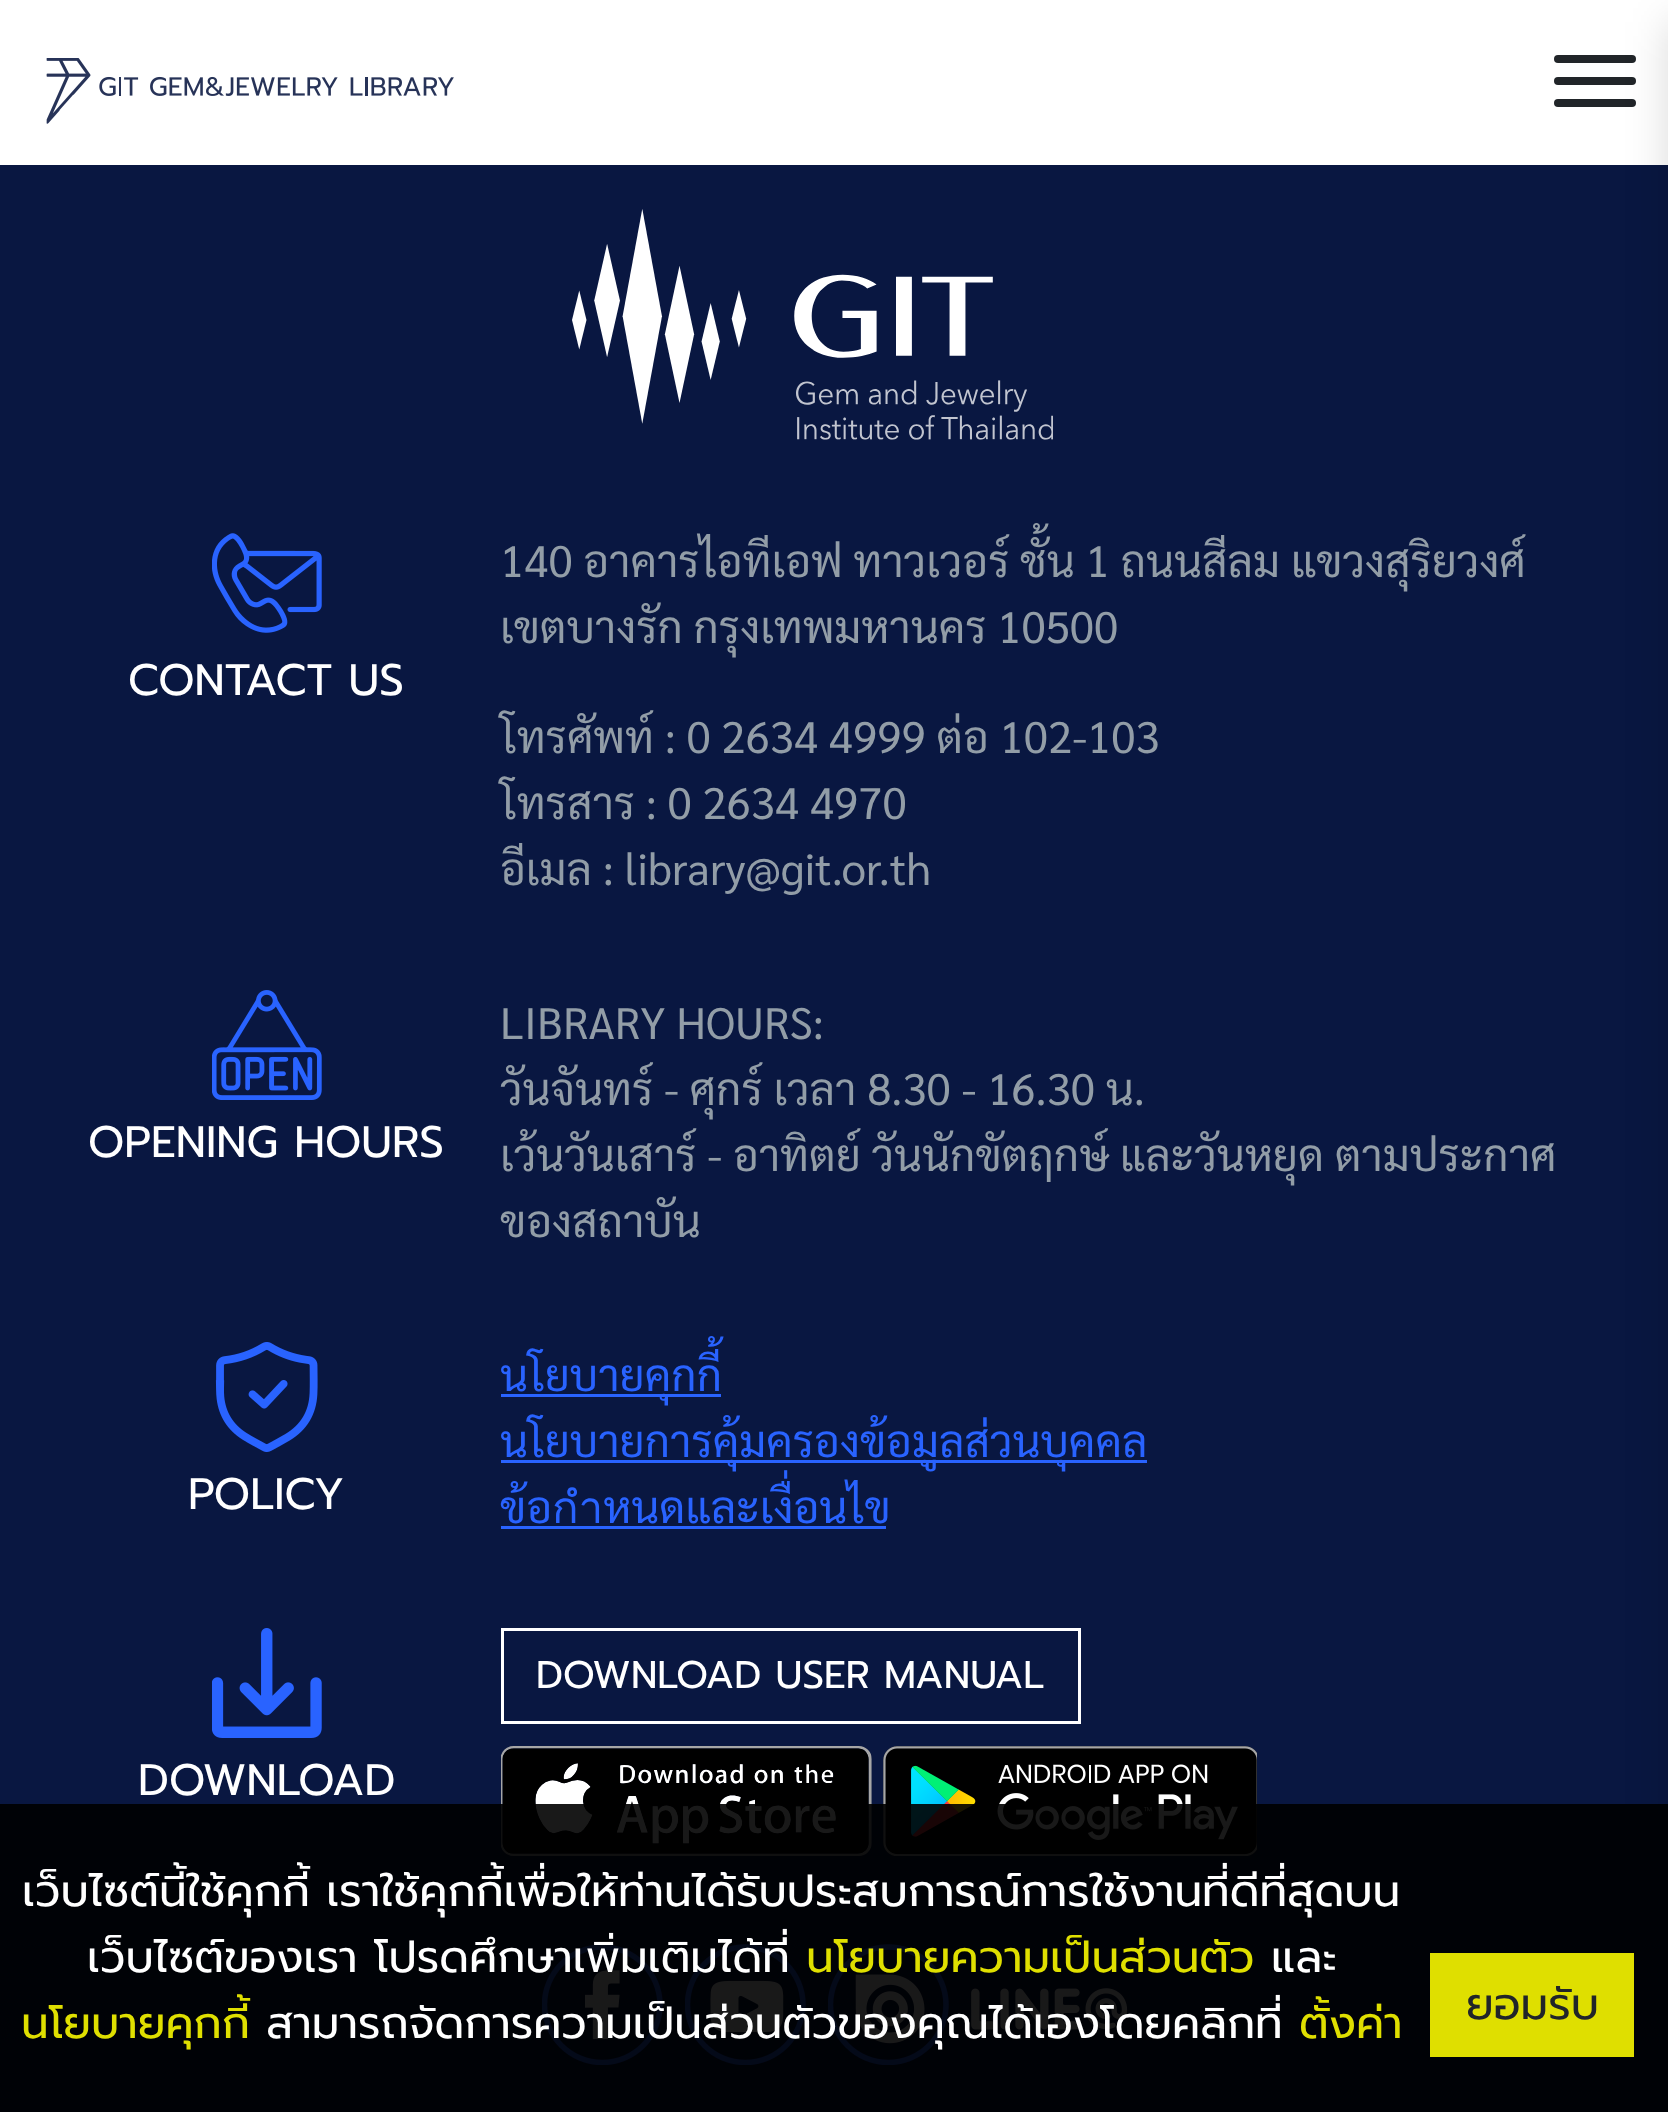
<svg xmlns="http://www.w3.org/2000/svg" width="1668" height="2112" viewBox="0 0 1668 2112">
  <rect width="100%" height="100%" fill="rgb(9,23,65)"/>
  <rect x="0" y="0" width="1668" height="165" fill="rgb(255,255,255)"/>
  <image x="46" y="58" width="408" height="66" href="pic1.png"/>
  <rect x="1554" y="55" width="82" height="8" rx="4" fill="rgb(33,37,41)"/>
  <rect x="1554" y="77" width="82" height="8" rx="4" fill="rgb(33,37,41)"/>
  <rect x="1554" y="99" width="82" height="8" rx="4" fill="rgb(33,37,41)"/>
  <image x="572" y="209" width="481" height="231" href="pic2.png"/>
  <image x="212" y="533" width="110" height="100" href="pic3.png"/>
  <text x="128" y="695" font-family="Prompt" font-size="44" fill="rgb(255,255,255)">CONTACT US</text>
  <g font-family="Sarabun" font-size="44" fill="rgb(146,157,167)">
    <text>
      <tspan x="500" y="577">140 อาคารไอทีเอฟ ทาวเวอร์ ชั้น 1 ถนนสีลม แขวงสุริยวงศ์</tspan>
      <tspan x="500" y="643">เขตบางรัก กรุงเทพมหานคร 10500</tspan>
    </text>
    <text>
      <tspan x="500" y="753">โทรศัพท์ : 0 2634 4999 ต่อ 102-103</tspan>
      <tspan x="500" y="819">โทรสาร : 0 2634 4970</tspan>
      <tspan x="500" y="885">อีเมล : library@git.or.th</tspan>
    </text>
  </g>
  <image x="212" y="990" width="110" height="110" href="pic4.png"/>
  <text x="88" y="1157" font-family="Prompt" font-size="44" fill="rgb(255,255,255)">OPENING HOURS</text>
  <g font-family="Sarabun" font-size="44" fill="rgb(146,157,167)">
    <text>
      <tspan x="500" y="1039">LIBRARY HOURS:</tspan>
      <tspan x="500" y="1105">วันจันทร์ - ศุกร์ เวลา 8.30 - 16.30 น.</tspan>
      <tspan x="500" y="1171">เว้นวันเสาร์ - อาทิตย์ วันนักขัตฤกษ์ และวันหยุด ตามประกาศ</tspan>
      <tspan x="500" y="1237">ของสถาบัน</tspan>
    </text>
  </g>
  <image x="215" y="1342" width="103" height="110" href="pic5.png"/>
  <text x="188" y="1509" font-family="Prompt" font-size="44" fill="rgb(255,255,255)">POLICY</text>
  <rect x="501" y="1394" width="220" height="3" fill="rgb(41,99,255)"/>
  <text x="500" y="1391" font-family="Sarabun" font-size="44" fill="rgb(41,99,255)">นโยบายคุกกี้</text>
  <rect x="501" y="1460" width="646" height="3" fill="rgb(41,99,255)"/>
  <g font-family="Sarabun" font-size="44" fill="rgb(41,99,255)">
    <text>
      <tspan x="500" y="1457">นโยบายการคุ้มครองข้อมูลส่วนบุคคล</tspan>
      <tspan x="500" y="1523">ข้อกำหนดและเงื่อนไข</tspan>
    </text>
  </g>
  <rect x="501" y="1526" width="385" height="3" fill="rgb(41,99,255)"/>
  <rect x="502.5" y="1629.5" width="577" height="93" fill="none" stroke="rgb(255,255,255)" stroke-width="3"/>
  <text x="536" y="1688" font-family="Prompt" font-size="38.5" fill="rgb(255,255,255)">DOWNLOAD USER MANUAL</text>
  <image x="501" y="1746" width="371" height="110" href="pic6.png"/>
  <image x="883" y="1746" width="374" height="110" href="pic7.png"/>
  <image x="212" y="1628" width="110" height="110" href="pic8.png"/>
  <text x="138" y="1795" font-family="Prompt" font-size="44" fill="rgb(255,255,255)">DOWNLOAD</text>
  <image x="542" y="1944" width="121" height="121" href="pic9.png"/>
  <image x="685" y="1944" width="121" height="121" href="pic10.png"/>
  <image x="828" y="1944" width="121" height="121" href="pic11.png"/>
  <image x="971" y="1988" width="157" height="42" href="pic12.png"/>
  <rect x="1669" y="22" width="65" height="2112" fill="rgba(0,0,0,0.15)" filter="blur(22px)"/>
  <rect x="0" y="1804" width="1668" height="308" fill="rgba(0,0,0,0.9)"/>
  <g font-family="Prompt" font-size="44" fill="rgb(255,255,255)">
    <text x="22" y="1906">เว็บไซต์นี้ใช้คุกกี้ เราใช้คุกกี้เพื่อให้ท่านได้รับประสบการณ์การใช้งานที่ดีที่สุดบน</text>
    <text x="87" y="1972">เว็บไซต์ของเรา โปรดศึกษาเพิ่มเติมได้ที่</text>
  </g>
  <text x="806" y="1972" font-family="Prompt" font-size="44" fill="rgb(223,223,0)">นโยบายความเป็นส่วนตัว</text>
  <text x="1271" y="1972" font-family="Prompt" font-size="44" fill="rgb(255,255,255)">และ</text>
  <text x="21" y="2038" font-family="Prompt" font-size="44" fill="rgb(223,223,0)">นโยบายคุกกี้</text>
  <text x="266" y="2038" font-family="Prompt" font-size="44" fill="rgb(255,255,255)">สามารถจัดการความเป็นส่วนตัวของคุณได้เองโดยคลิกที่</text>
  <text x="1299" y="2038" font-family="Prompt" font-size="44" fill="rgb(223,223,0)">ตั้งค่า</text>
  <rect x="1430" y="1953" width="204" height="104" fill="rgb(223,223,0)"/>
  <text x="1466" y="2019" font-family="Prompt" font-size="44" fill="rgb(33,37,41)">ยอมรับ</text>
</svg>
